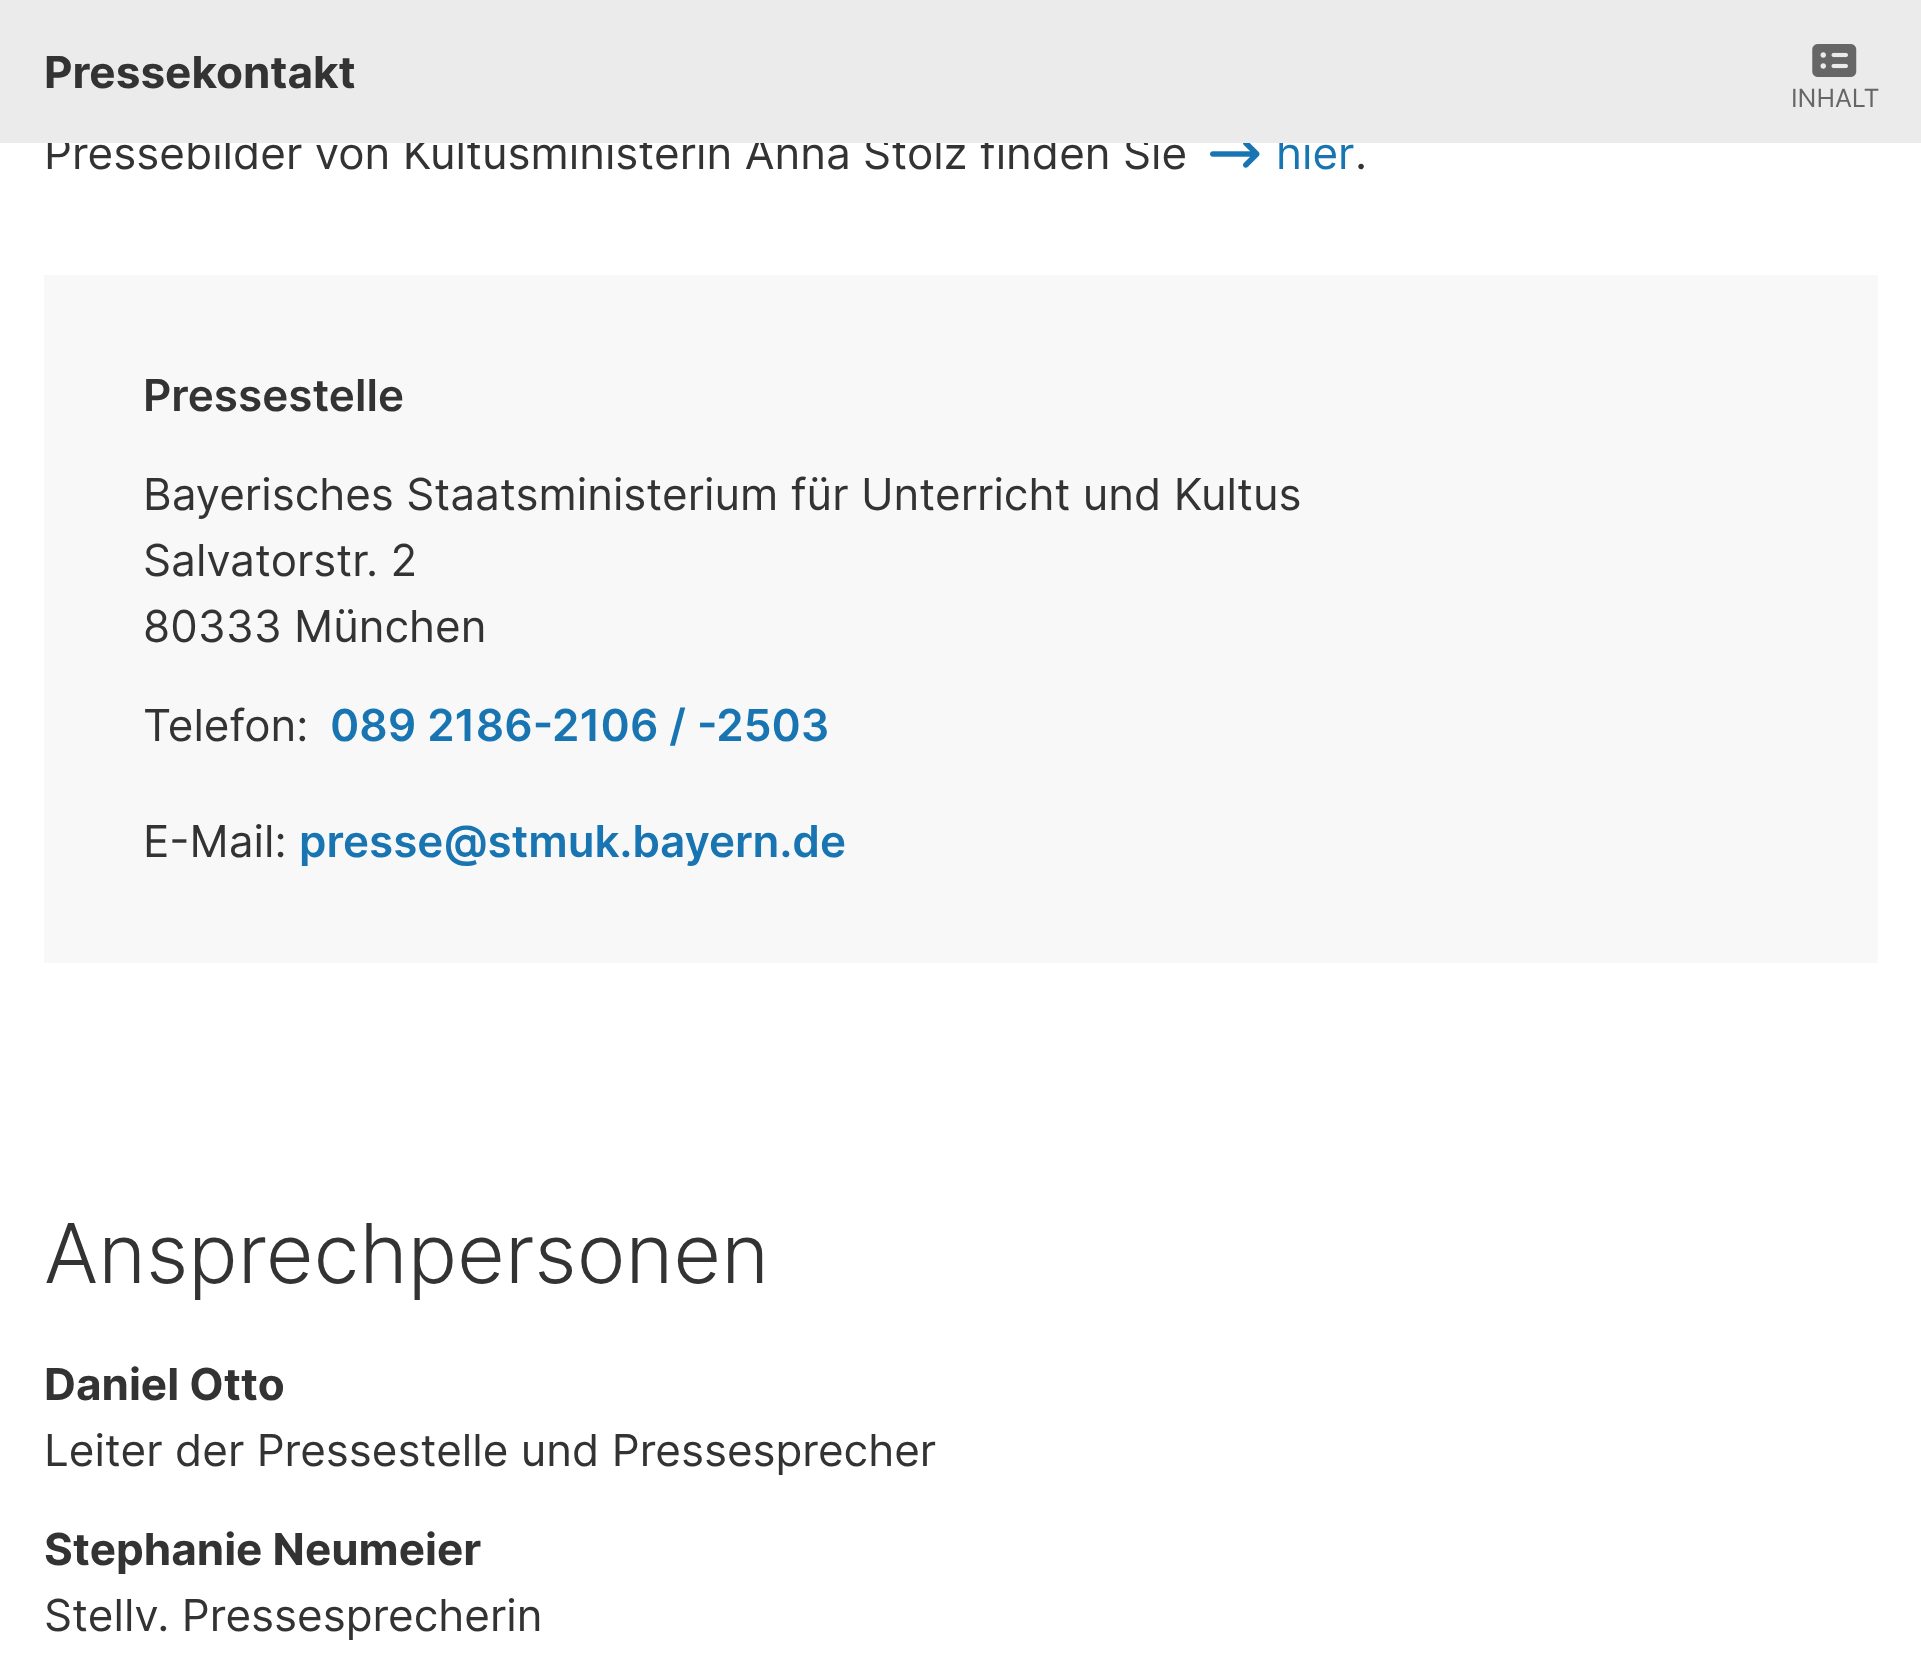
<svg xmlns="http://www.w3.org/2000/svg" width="1921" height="1655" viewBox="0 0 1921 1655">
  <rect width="100%" height="100%" fill="rgb(255,255,255)"/>
  <text x="44" y="169" font-family="Inter" font-size="44" fill="rgb(51,51,51)">Pressebilder von Kultusministerin Anna Stolz finden Sie</text>
  <text x="1276" y="169" font-family="Inter" font-size="44" fill="rgb(24,117,178)">hier</text>
  <rect x="0" y="0" width="1921" height="143" fill="rgb(235,235,235)"/>
  <text x="44" y="88" font-family="Inter" font-size="44" font-weight="bold" fill="rgb(51,51,51)">Pressekontakt</text>
  <image x="1812" y="44" width="45" height="33" href="pic1.png"/>
  <text x="1791" y="107" font-family="Inter" font-size="25" fill="rgb(102,102,102)">INHALT</text>
  <image x="1210" y="143" width="50" height="25" href="pic2.png"/>
  <text x="1355" y="169" font-family="Inter" font-size="44" fill="rgb(51,51,51)">.</text>
  <rect x="44" y="275" width="1834" height="688" fill="rgb(248,248,248)"/>
  <text x="143" y="411" font-family="Inter" font-size="44" font-weight="600" fill="rgb(51,51,51)">Pressestelle</text>
  <g font-family="Inter" font-size="44" fill="rgb(51,51,51)">
    <text>
      <tspan x="143" y="510">Bayerisches Staatsministerium für Unterricht und Kultus</tspan>
      <tspan x="143" y="576">Salvatorstr. 2</tspan>
      <tspan x="143" y="642">80333 München</tspan>
    </text>
    <text x="143" y="741">Telefon:</text>
  </g>
  <text x="330" y="741" font-family="Inter" font-size="44" font-weight="600" fill="rgb(24,117,178)">089 2186-2106 / -2503</text>
  <text x="143" y="857" font-family="Inter" font-size="44" fill="rgb(51,51,51)">E-Mail:</text>
  <text x="299" y="857" font-family="Inter" font-size="44" font-weight="600" fill="rgb(24,117,178)">presse@stmuk.bayern.de</text>
  <text x="44" y="1283" font-family="Inter" font-size="82.5" font-weight="300" fill="rgb(51,51,51)">Ansprechpersonen</text>
  <text x="44" y="1400" font-family="Inter" font-size="44" font-weight="bold" fill="rgb(51,51,51)">Daniel Otto</text>
  <text x="44" y="1466" font-family="Inter" font-size="44" fill="rgb(51,51,51)">Leiter der Pressestelle und Pressesprecher</text>
  <text x="44" y="1565" font-family="Inter" font-size="44" font-weight="bold" fill="rgb(51,51,51)">Stephanie Neumeier</text>
  <text x="44" y="1631" font-family="Inter" font-size="44" fill="rgb(51,51,51)">Stellv. Pressesprecherin</text>
</svg>
